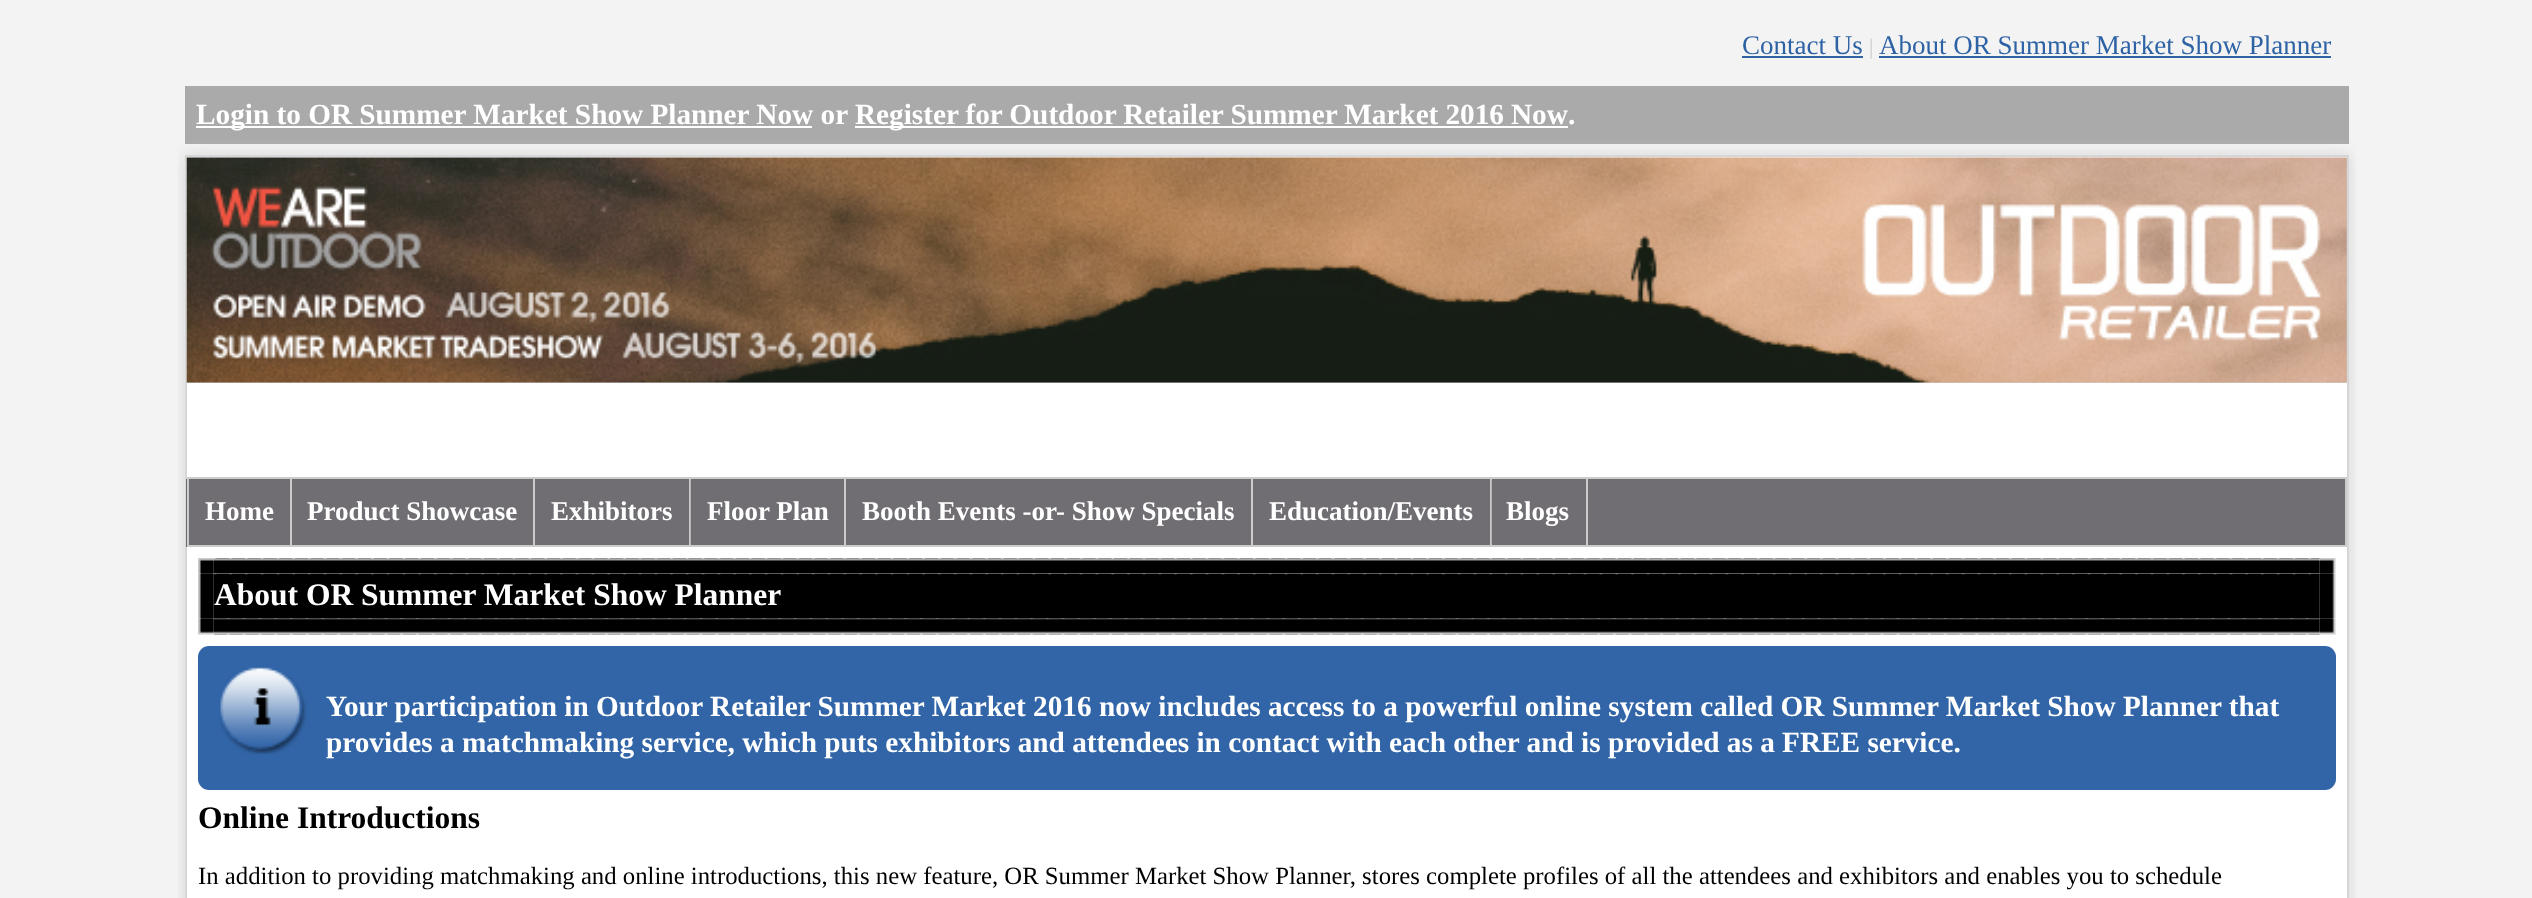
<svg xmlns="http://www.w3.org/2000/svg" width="2532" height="898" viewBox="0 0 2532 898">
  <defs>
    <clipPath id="clip1"><rect x="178" y="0" width="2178" height="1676"/></clipPath>
  </defs>
  <rect width="100%" height="100%" fill="rgb(243,243,243)"/>
  <text x="1742" y="54" font-family="Liberation Serif" font-size="27" fill="rgb(45,98,165)">Contact Us</text>
  <rect x="1742" y="56" width="121" height="2" fill="rgb(45,98,165)"/>
  <text x="1869" y="54" font-family="Liberation Serif" font-size="22" fill="rgb(204,204,204)">|</text>
  <text x="1879" y="54" font-family="Liberation Serif" font-size="27" fill="rgb(45,98,165)">About OR Summer Market Show Planner</text>
  <rect x="1879" y="56" width="452" height="2" fill="rgb(45,98,165)"/>
  <rect x="185" y="86" width="2164" height="58" fill="rgb(170,170,170)"/>
  <rect x="196" y="126" width="616" height="2" fill="rgb(255,255,255)"/>
  <g clip-path="url(#clip1)">
    <rect x="185" y="155" width="2164" height="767" fill="rgb(214,214,214)" filter="blur(8px)"/>
  </g>
  <text x="196" y="124" font-family="Liberation Serif" font-size="29.25" font-weight="bold" fill="rgb(255,255,255)">Login to OR Summer Market Show Planner Now or</text>
  <rect x="855" y="126" width="713" height="2" fill="rgb(255,255,255)"/>
  <g font-family="Liberation Serif" font-size="29.25" font-weight="bold" fill="rgb(255,255,255)">
    <text x="855" y="124" word-spacing="-0.25">Register for Outdoor Retailer Summer Market 2016 Now</text>
    <text x="1568" y="124">.</text>
  </g>
  <rect x="186" y="156" width="2162" height="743" fill="rgb(255,255,255)" stroke="rgb(214,214,214)" stroke-width="2"/>
  <rect x="187" y="158" width="2160" height="225" fill="rgb(204,204,204)"/>
  <image x="186" y="157" width="2161" height="226" href="pic1.png"/>
  <rect x="186" y="479" width="2159" height="68" fill="rgb(112,110,115)"/>
  <rect x="188" y="478" width="2158" height="68" fill="none" stroke="rgb(204,204,204)" stroke-width="2"/>
  <rect x="290" y="479" width="2" height="66" fill="rgb(204,204,204)"/>
  <text x="205" y="520" font-family="Liberation Serif" font-size="27" font-weight="bold" fill="rgb(255,255,255)">Home</text>
  <rect x="533" y="479" width="2" height="66" fill="rgb(204,204,204)"/>
  <text x="307" y="520" font-family="Liberation Serif" font-size="27" font-weight="bold" fill="rgb(255,255,255)">Product Showcase</text>
  <rect x="689" y="479" width="2" height="66" fill="rgb(204,204,204)"/>
  <text x="551" y="520" font-family="Liberation Serif" font-size="27" font-weight="bold" fill="rgb(255,255,255)">Exhibitors</text>
  <image x="690" y="479" width="1" height="66" href="pic2.png"/>
  <rect x="844" y="479" width="2" height="66" fill="rgb(204,204,204)"/>
  <text x="707" y="520" font-family="Liberation Serif" font-size="27" font-weight="bold" fill="rgb(255,255,255)">Floor Plan</text>
  <rect x="1251" y="479" width="2" height="66" fill="rgb(204,204,204)"/>
  <text x="862" y="520" font-family="Liberation Serif" font-size="27" font-weight="bold" fill="rgb(255,255,255)">Booth Events -or- Show Specials</text>
  <rect x="1490" y="479" width="2" height="66" fill="rgb(204,204,204)"/>
  <text x="1269" y="520" font-family="Liberation Serif" font-size="27" font-weight="bold" fill="rgb(255,255,255)">Education/Events</text>
  <image x="1491" y="479" width="1" height="66" href="pic2.png"/>
  <rect x="1586" y="479" width="2" height="66" fill="rgb(204,204,204)"/>
  <text x="1506" y="520" font-family="Liberation Serif" font-size="27" font-weight="bold" fill="rgb(255,255,255)">Blogs</text>
  <image x="198" y="558" width="16" height="16" href="pic3.png"/>
  <image x="213" y="558" width="2107" height="16" href="pic4.png"/>
  <image x="2319" y="558" width="17" height="16" href="pic5.png"/>
  <image x="198" y="573" width="16" height="46" href="pic6.png"/>
  <image x="213" y="573" width="2107" height="46" href="pic7.png"/>
  <text x="214" y="605" font-family="Liberation Serif" font-size="31.5" font-weight="bold" fill="rgb(255,255,255)">About OR Summer Market Show Planner</text>
  <image x="2319" y="573" width="17" height="46" href="pic8.png"/>
  <image x="198" y="618" width="16" height="17" href="pic9.png"/>
  <image x="213" y="618" width="2107" height="17" href="pic10.png"/>
  <image x="2319" y="618" width="17" height="17" href="pic11.png"/>
  <rect x="198" y="646" width="2138" height="144" rx="11" fill="rgb(50,101,167)"/>
  <image x="219" y="667" width="87" height="87" href="pic12.png"/>
  <g font-family="Liberation Serif" font-size="29.25" font-weight="bold" fill="rgb(255,255,255)">
    <text>
      <tspan x="326" y="716">Your participation in Outdoor Retailer Summer Market 2016 now includes access to a powerful online system called OR Summer Market Show Planner that</tspan>
      <tspan x="326" y="752">provides a matchmaking service, which puts exhibitors and attendees in contact with each other and is provided as a FREE service.</tspan>
    </text>
  </g>
  <text x="198" y="828" font-family="Liberation Serif" font-size="31.5" font-weight="bold" fill="rgb(0,0,0)">Online Introductions</text>
  <text x="198" y="884" font-family="Liberation Serif" font-size="24.75" fill="rgb(0,0,0)">In addition to providing matchmaking and online introductions, this new feature, OR Summer Market Show Planner, stores complete profiles of all the attendees and exhibitors and enables you to schedule</text>
</svg>
